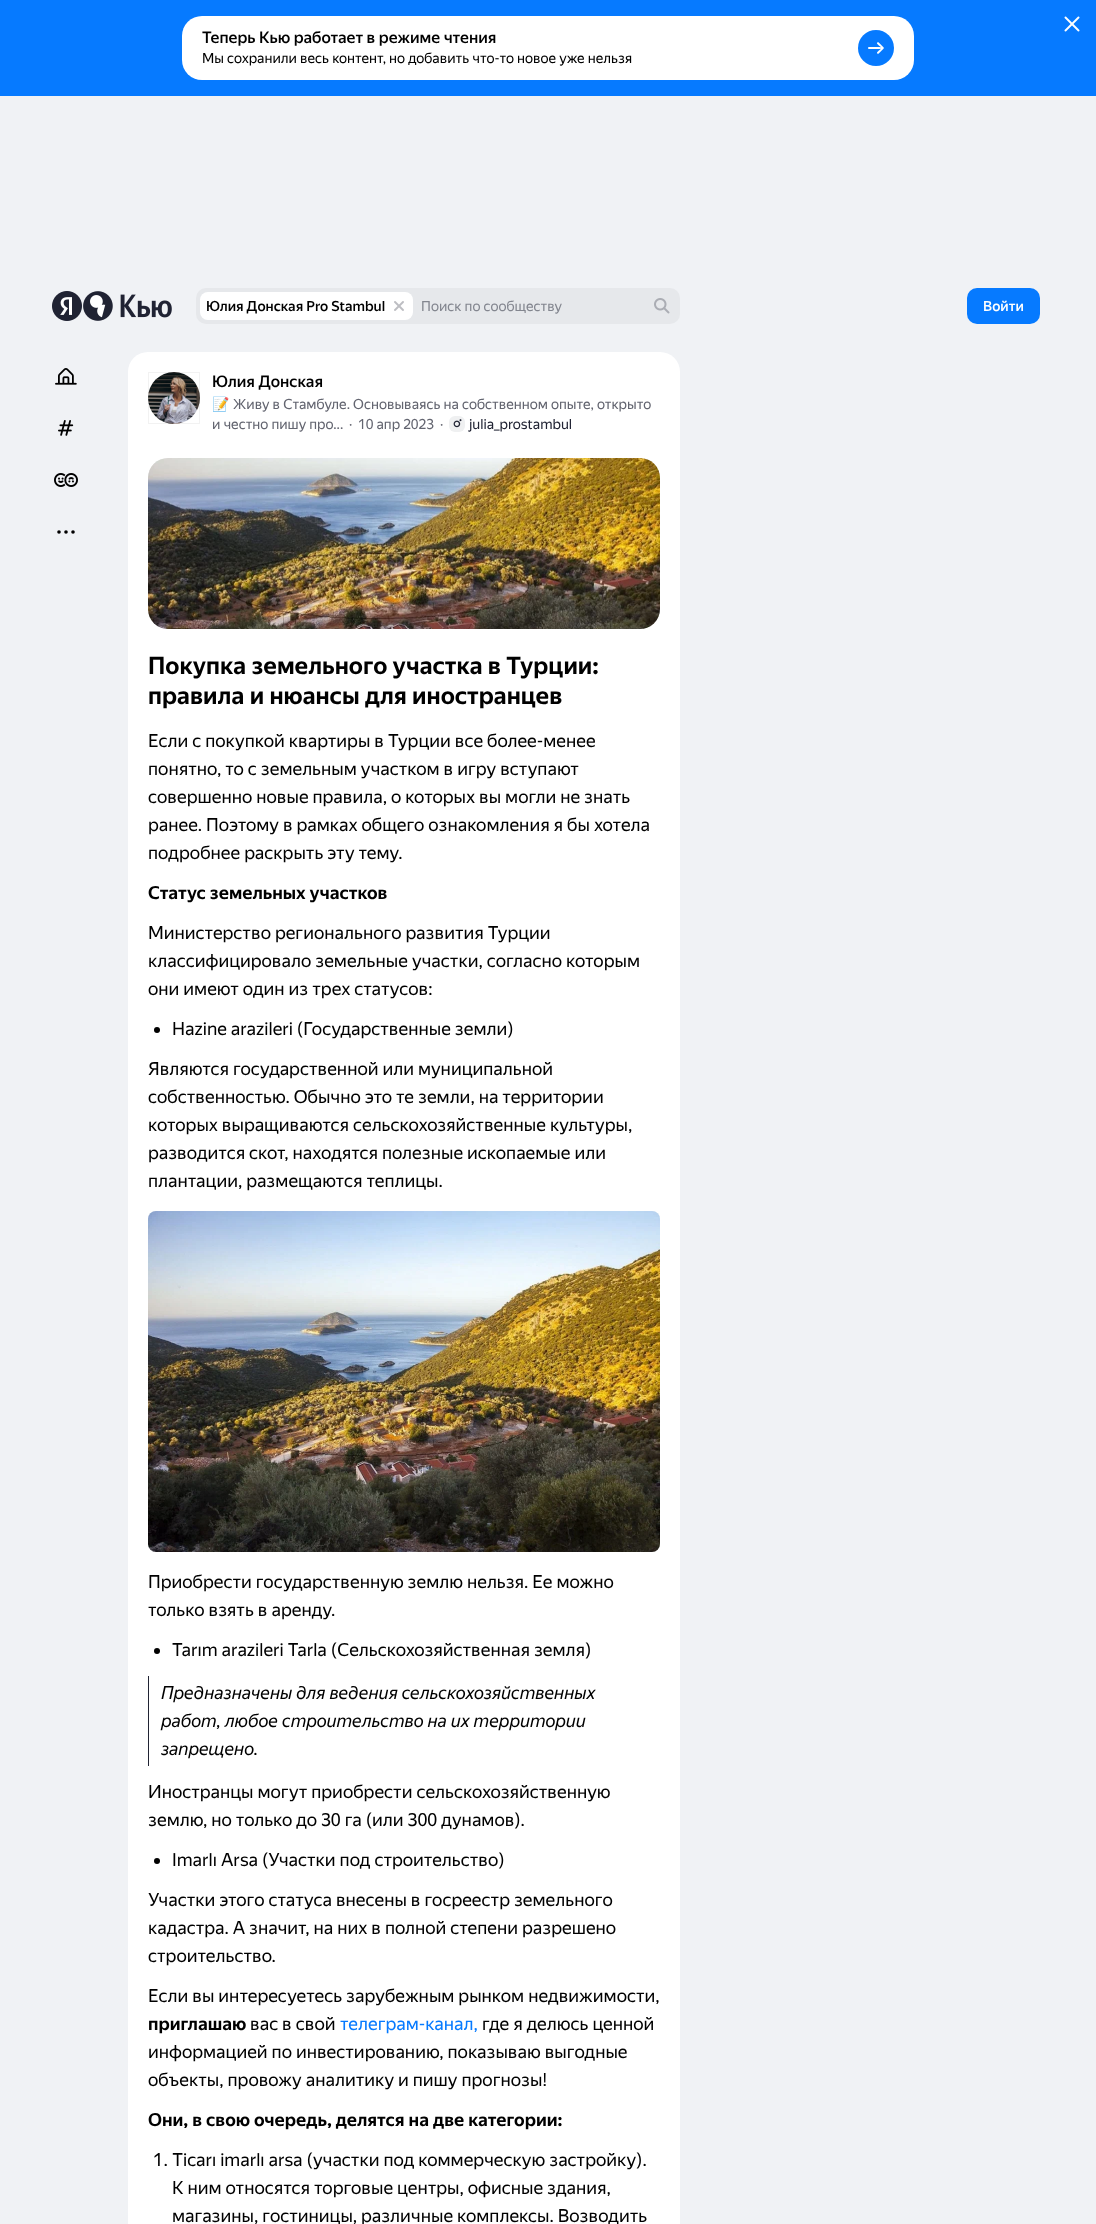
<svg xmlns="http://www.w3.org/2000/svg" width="1096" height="2224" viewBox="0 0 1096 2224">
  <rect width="100%" height="100%" fill="rgb(240,242,245)"/>
  <rect x="0" y="0" width="1096" height="96" fill="rgb(6,122,255)"/>
  <image x="1064" y="16" width="16" height="16" href="pic1.png"/>
  <rect x="182" y="16" width="732" height="64" rx="20" fill="rgb(255,255,255)"/>
  <text x="202" y="43" font-family="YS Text" font-size="16" font-weight="500" fill="rgb(0,0,0)">Теперь Кью работает в режиме чтения</text>
  <text x="202" y="63" font-family="YS Text" font-size="14" fill="rgb(0,0,0)">Мы сохранили весь контент, но добавить что-то новое уже нельзя</text>
  <circle cx="876" cy="48" r="18" fill="rgb(6,122,255)"/>
  <image x="868" y="42" width="16" height="12" href="pic2.png"/>
  <image x="52" y="291" width="120" height="30" href="pic3.png"/>
  <rect x="196" y="288" width="484" height="36" rx="10" fill="rgb(230,232,235)"/>
  <rect x="200" y="292" width="213" height="28" rx="8" fill="rgb(255,255,255)"/>
  <text x="206" y="311" font-family="YS Text" font-size="14" font-weight="500" fill="rgb(0,0,0)">Юлия Донская Pro Stambul</text>
  <image x="394" y="301" width="10" height="10" href="pic4.png"/>
  <text x="421" y="311" font-family="YS Text" font-size="14" fill="rgb(131,134,143)">Поиск по сообществу</text>
  <image x="654" y="298" width="16" height="16" href="pic5.png"/>
  <rect x="967" y="288" width="73" height="36" rx="10" fill="rgb(6,122,255)"/>
  <text x="983" y="311" font-family="YS Text" font-size="14" font-weight="500" fill="rgb(255,255,255)">Войти</text>
  <image x="55" y="368" width="22" height="17" href="pic6.png"/>
  <image x="58" y="420" width="16" height="16" href="pic7.png"/>
  <image x="54" y="473" width="24" height="14" href="pic8.png"/>
  <circle cx="59" cy="532" r="1.8" fill="rgb(0,0,0)"/>
  <circle cx="66" cy="532" r="1.8" fill="rgb(0,0,0)"/>
  <circle cx="73" cy="532" r="1.8" fill="rgb(0,0,0)"/>
  <rect x="128" y="352" width="552" height="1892" rx="20" fill="rgb(255,255,255)"/>
  <image x="148" y="372" width="52" height="52" href="pic9.png"/>
  <rect x="148.5" y="372.5" width="51" height="51" fill="none" stroke="rgba(0,0,0,0.05)"/>
  <text x="212" y="387" font-family="YS Text" font-size="16" font-weight="500" fill="rgb(0,0,0)">Юлия Донская</text>
  <text x="212" y="409" font-family="Noto Color Emoji" font-size="14" fill="rgb(99,101,112)">📝</text>
  <g font-family="YS Text" font-size="14" fill="rgb(99,101,112)">
    <text x="233" y="409">Живу в Стамбуле. Основываясь на собственном опыте, открыто</text>
    <text x="212" y="429">и честно пишу про...</text>
    <text x="349" y="429">·</text>
    <text x="358" y="429">10 апр 2023</text>
    <text x="440" y="429">·</text>
  </g>
  <rect x="449" y="416" width="16" height="16" rx="6" fill="rgb(239,240,241)"/>
  <image x="453" y="419" width="9" height="9" href="pic10.png"/>
  <text x="469" y="429" font-family="YS Text" font-size="14" fill="rgb(32,35,51)">julia_prostambul</text>
  <rect x="148" y="458" width="512" height="171" rx="20" fill="rgb(239,240,241)"/>
  <image x="148" y="458" width="512" height="171" href="pic11.png"/>
  <g font-family="YS Text" font-size="24" font-weight="bold" fill="rgb(0,0,0)">
    <text>
      <tspan x="148" y="674">Покупка земельного участка в Турции:</tspan>
      <tspan x="148" y="704">правила и нюансы для иностранцев</tspan>
    </text>
  </g>
  <g font-family="YS Text" font-size="18" fill="rgb(0,0,0)">
    <text>
      <tspan x="148" y="747">Если с покупкой квартиры в Турции все более-менее</tspan>
      <tspan x="148" y="775">понятно, то с земельным участком в игру вступают</tspan>
      <tspan x="148" y="803">совершенно новые правила, о которых вы могли не знать</tspan>
      <tspan x="148" y="831">ранее. Поэтому в рамках общего ознакомления я бы хотела</tspan>
      <tspan x="148" y="859">подробнее раскрыть эту тему.</tspan>
    </text>
  </g>
  <text x="148" y="899" font-family="YS Text" font-size="18" font-weight="bold" fill="rgb(0,0,0)">Статус земельных участков</text>
  <g font-family="YS Text" font-size="18" fill="rgb(0,0,0)">
    <text>
      <tspan x="148" y="939">Министерство регионального развития Турции</tspan>
      <tspan x="148" y="967">классифицировало земельные участки, согласно которым</tspan>
      <tspan x="148" y="995">они имеют один из трех статусов:</tspan>
    </text>
  </g>
  <circle cx="157" cy="1030" r="3" fill="rgb(0,0,0)"/>
  <g font-family="YS Text" font-size="18" fill="rgb(0,0,0)">
    <text x="172" y="1035">Hazine arazileri (Государственные земли)</text>
    <text>
      <tspan x="148" y="1075">Являются государственной или муниципальной</tspan>
      <tspan x="148" y="1103">собственностью. Обычно это те земли, на территории</tspan>
      <tspan x="148" y="1131">которых выращиваются сельскохозяйственные культуры,</tspan>
      <tspan x="148" y="1159">разводится скот, находятся полезные ископаемые или</tspan>
      <tspan x="148" y="1187">плантации, размещаются теплицы.</tspan>
    </text>
  </g>
  <rect x="148" y="1211" width="512" height="341" rx="8" fill="rgb(244,245,245)"/>
  <image x="148" y="1211" width="512" height="341" href="pic12.png"/>
  <g font-family="YS Text" font-size="18" fill="rgb(0,0,0)">
    <text>
      <tspan x="148" y="1588">Приобрести государственную землю нельзя. Ее можно</tspan>
      <tspan x="148" y="1616">только взять в аренду.</tspan>
    </text>
  </g>
  <circle cx="157" cy="1651" r="3" fill="rgb(0,0,0)"/>
  <text x="172" y="1656" font-family="YS Text" font-size="18" fill="rgb(0,0,0)">Tarım arazileri Tarla (Сельскохозяйственная земля)</text>
  <rect x="148" y="1676" width="1" height="90" fill="rgb(32,35,51)"/>
  <g font-family="YS Text" font-size="18" font-style="italic" fill="rgb(0,0,0)">
    <text>
      <tspan x="161" y="1699">Предназначены для ведения сельскохозяйственных</tspan>
      <tspan x="161" y="1727">работ, любое строительство на их территории</tspan>
      <tspan x="161" y="1755">запрещено.</tspan>
    </text>
  </g>
  <g font-family="YS Text" font-size="18" fill="rgb(0,0,0)">
    <text>
      <tspan x="148" y="1798">Иностранцы могут приобрести сельскохозяйственную</tspan>
      <tspan x="148" y="1826">землю, но только до 30 га (или 300 дунамов).</tspan>
    </text>
  </g>
  <circle cx="157" cy="1861" r="3" fill="rgb(0,0,0)"/>
  <g font-family="YS Text" font-size="18" fill="rgb(0,0,0)">
    <text x="172" y="1866">Imarlı Arsa (Участки под строительство)</text>
    <text>
      <tspan x="148" y="1906">Участки этого статуса внесены в госреестр земельного</tspan>
      <tspan x="148" y="1934">кадастра. А значит, на них в полной степени разрешено</tspan>
      <tspan x="148" y="1962">строительство.</tspan>
    </text>
    <text x="148" y="2002">Если вы интересуетесь зарубежным рынком недвижимости,</text>
  </g>
  <text x="148" y="2030" font-family="YS Text" font-size="18" font-weight="bold" fill="rgb(0,0,0)">приглашаю</text>
  <text x="250" y="2030" font-family="YS Text" font-size="18" fill="rgb(0,0,0)">вас в свой</text>
  <text x="340" y="2030" font-family="YS Text" font-size="18" fill="rgb(6,122,255)">телеграм-канал,</text>
  <g font-family="YS Text" font-size="18" fill="rgb(0,0,0)">
    <text x="482" y="2030">где я делюсь ценной</text>
    <text>
      <tspan x="148" y="2058">информацией по инвестированию, показываю выгодные</tspan>
      <tspan x="148" y="2086">объекты, провожу аналитику и пишу прогнозы!</tspan>
    </text>
  </g>
  <text x="148" y="2126" font-family="YS Text" font-size="18" font-weight="bold" fill="rgb(0,0,0)">Они, в свою очередь, делятся на две категории:</text>
  <g font-family="YS Text" font-size="18" fill="rgb(0,0,0)">
    <text x="153" y="2166">1. Ticarı imarlı arsa (участки под коммерческую застройку).</text>
    <text>
      <tspan x="172" y="2194">К ним относятся торговые центры, офисные здания,</tspan>
      <tspan x="172" y="2222">магазины, гостиницы, различные комплексы. Возводить</tspan>
    </text>
  </g>
</svg>
